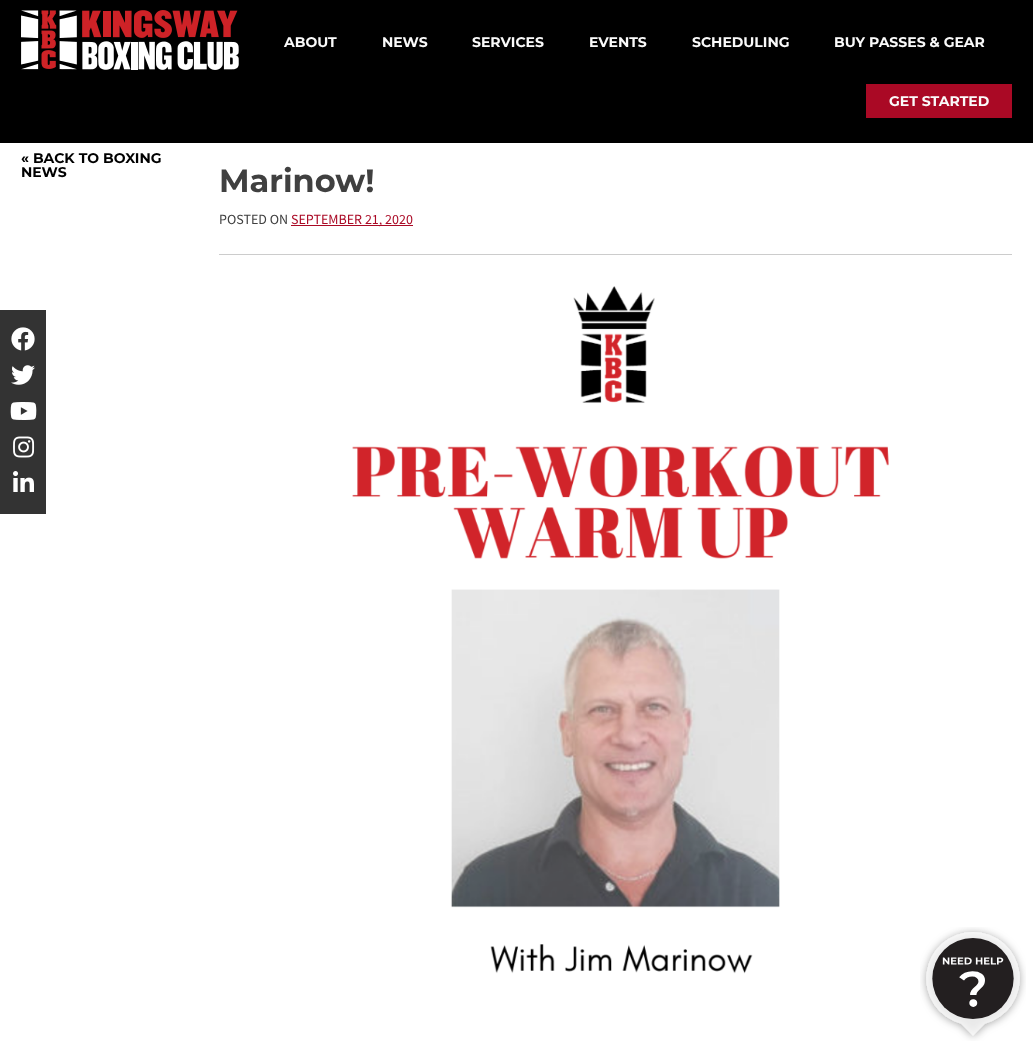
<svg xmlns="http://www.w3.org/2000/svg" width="1033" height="1056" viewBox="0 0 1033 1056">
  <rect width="100%" height="100%" fill="rgb(255,255,255)"/>
  <rect x="0" y="0" width="1033" height="143" fill="rgb(0,0,0)"/>
  <image x="21" y="10" width="218" height="60" href="pic1.png"/>
  <g font-family="Montserrat" font-size="14" font-weight="bold" fill="rgb(250,250,250)">
    <text x="284" y="47">ABOUT</text>
    <text x="382" y="47">NEWS</text>
    <text x="472" y="47">SERVICES</text>
    <text x="589" y="47">EVENTS</text>
    <text x="692" y="47">SCHEDULING</text>
    <text x="834" y="47">BUY PASSES &amp; GEAR</text>
  </g>
  <rect x="866" y="84" width="146" height="34" fill="rgb(170,9,37)"/>
  <text x="889" y="106" font-family="Montserrat" font-size="14" font-weight="bold" fill="rgb(250,250,250)">GET STARTED</text>
  <g font-family="Montserrat" font-size="14" font-weight="bold" fill="rgb(0,0,0)">
    <text>
      <tspan x="21" y="163">« BACK TO BOXING</tspan>
      <tspan x="21" y="177">NEWS</tspan>
    </text>
  </g>
  <text x="219" y="192" font-family="Montserrat" font-size="32" font-weight="bold" fill="rgb(64,64,64)">Marinow!</text>
  <text x="219" y="224" font-family="Source Sans Pro" font-size="14" fill="rgb(64,64,64)">POSTED ON</text>
  <rect x="291" y="225" width="122" height="1" fill="rgb(170,9,37)"/>
  <text x="291" y="224" font-family="Source Sans Pro" font-size="14" fill="rgb(170,9,37)">SEPTEMBER 21, 2020</text>
  <rect x="219" y="254" width="793" height="1" fill="rgb(204,204,204)"/>
  <image x="352" y="286" width="537" height="688" href="pic2.png"/>
  <rect x="0" y="310" width="46" height="204" fill="rgb(51,51,51)"/>
  <image x="11" y="327" width="24" height="24" href="pic3.png"/>
  <image x="11" y="365" width="24" height="20" href="pic4.png"/>
  <image x="10" y="402" width="27" height="18" href="pic5.png"/>
  <image x="13" y="436" width="22" height="22" href="pic6.png"/>
  <image x="13" y="471" width="21" height="21" href="pic7.png"/>
  <image x="920" y="927" width="106" height="114" href="pic8.png"/>
</svg>
